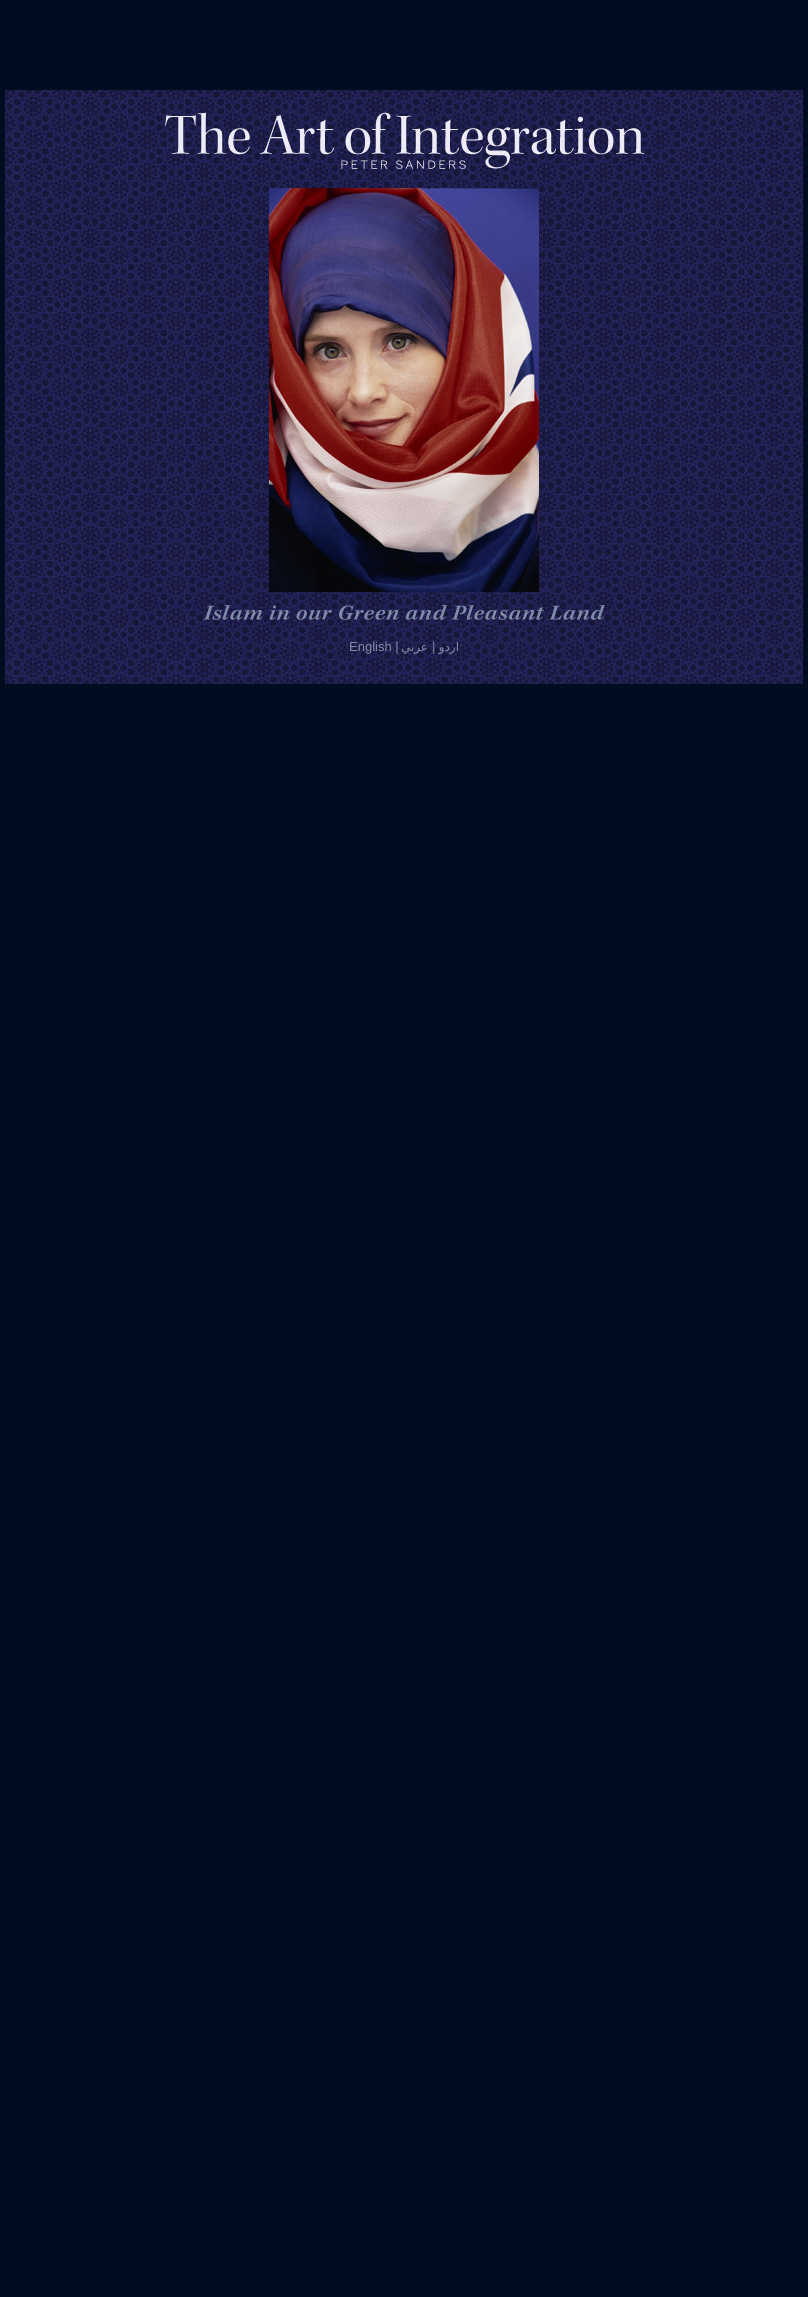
<svg xmlns="http://www.w3.org/2000/svg" width="808" height="2297" viewBox="0 0 808 2297">
  <rect width="100%" height="100%" fill="rgb(0,13,33)"/>
  <image x="5" y="90" width="798" height="594" href="pic1.png"/>
  <image x="155" y="90" width="494" height="96" href="pic2.png"/>
  <image x="269" y="188" width="270" height="404" href="pic3.png"/>
  <image x="155" y="592" width="485" height="39" href="pic4.png"/>
  <text x="349" y="651" font-family="Liberation Sans" font-size="13" fill="rgb(128,139,169)">English |</text>
  <text x="428" y="651" font-family="DejaVu Sans" font-size="12" direction="rtl" fill="rgb(128,139,169)">عربي</text>
  <text x="432" y="651" font-family="Liberation Sans" font-size="13" fill="rgb(128,139,169)">|</text>
  <text x="459" y="651" font-family="DejaVu Sans" font-size="12" direction="rtl" fill="rgb(128,139,169)">اردو</text>
</svg>
